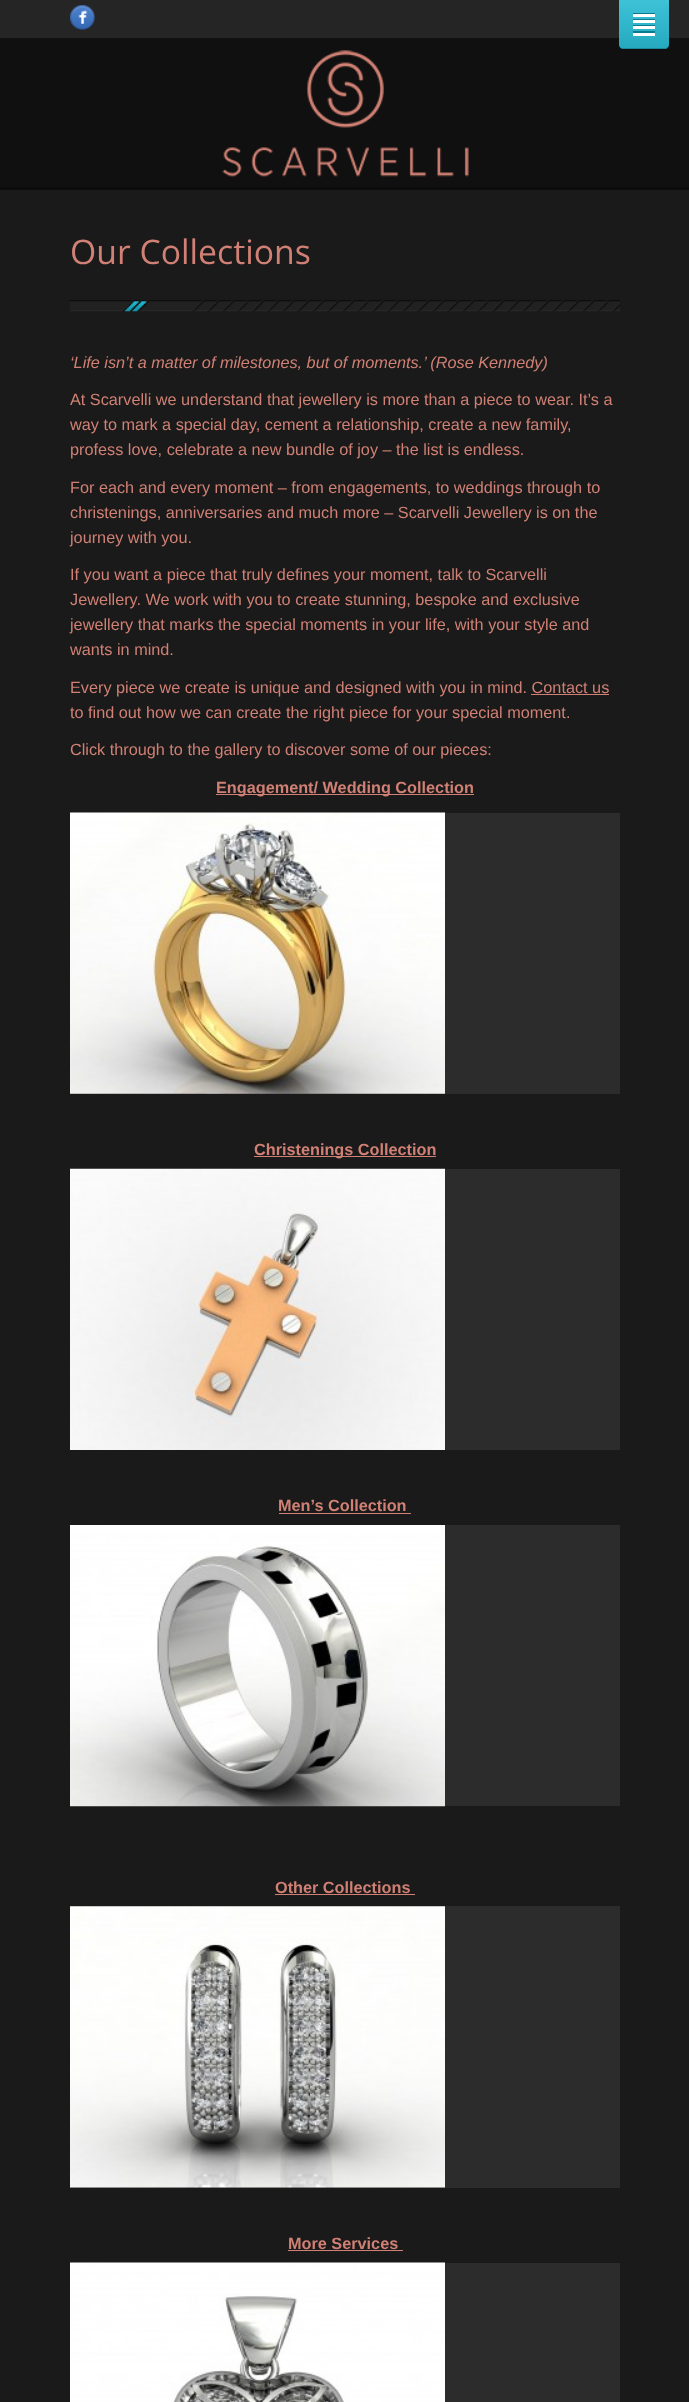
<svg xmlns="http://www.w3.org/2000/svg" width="689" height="2402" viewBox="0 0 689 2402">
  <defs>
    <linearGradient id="g1" gradientUnits="userSpaceOnUse" x1="644" y1="-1.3" x2="644" y2="49"><stop offset="0" stop-color="rgb(255,255,255)" stop-opacity="0.1"/><stop offset="0.99" stop-color="rgb(0,0,0)" stop-opacity="0.1"/></linearGradient>
  </defs>
  <rect width="100%" height="100%" fill="rgb(26,26,26)"/>
  <rect x="0" y="38" width="689" height="149" fill="rgb(16,16,16)"/>
  <rect x="0" y="187" width="689" height="3" fill="rgb(13,13,13)"/>
  <path d="M619 46C619 48 621 50 623 50H665C667 50 669 48 669 46V0V45C669 47 667 49 665 49H622C621 49 620 48 619 46Z" fill="rgb(13,13,13)"/>
  <rect x="0" y="0" width="689" height="38" fill="rgb(37,37,37)"/>
  <path d="M619-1H669V45C669 47 667 49 665 49H623C621 49 619 47 619 45Z" fill="rgb(40,188,211)"/>
  <rect x="619" y="-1" width="50" height="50" rx="4" fill="url(#g1)"/>
  <path d="M622 0H665C667 0 669 2 669 4C669-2 663-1 658-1H630C625-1 619-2 619 4C619 2 620 0 622 0Z" fill="rgba(255,255,255,0.2)"/>
  <path d="M619 44C619 50 625 49 630 49H658C663 49 669 50 669 44C669 46 667 48 665 48H622C620 48 619 46 619 44Z" fill="rgba(0,0,0,0.2)"/>
  <rect x="633" y="13" width="22" height="1" fill="rgb(13,123,143)"/>
  <rect x="633" y="14" width="22" height="3" fill="rgb(255,255,255)"/>
  <rect x="633" y="19" width="22" height="1" fill="rgb(13,123,143)"/>
  <rect x="633" y="20" width="22" height="3" fill="rgb(255,255,255)"/>
  <rect x="633" y="25" width="22" height="1" fill="rgb(13,123,143)"/>
  <rect x="633" y="26" width="22" height="3" fill="rgb(255,255,255)"/>
  <rect x="633" y="31" width="22" height="2" fill="rgb(13,123,143)"/>
  <rect x="633" y="33" width="22" height="3" fill="rgb(255,255,255)"/>
  <image x="222" y="50" width="247" height="127" href="pic1.png"/>
  <image x="70" y="5" width="25" height="25" href="pic2.png"/>
  <text x="70" y="264" font-family="Open Sans" font-size="33.75" fill="rgb(208,128,116)">Our Collections</text>
  <image x="70" y="300" width="550" height="12" href="pic3.png"/>
  <text x="70" y="368" font-family="Liberation Sans" font-size="16.25" font-style="italic" fill="rgb(208,128,116)">‘Life isn’t a matter of milestones, but of moments.’ (Rose Kennedy)</text>
  <g font-family="Liberation Sans" font-size="16.25" fill="rgb(208,128,116)">
    <text>
      <tspan x="70" y="405">At Scarvelli we understand that jewellery is more than a piece to wear. It’s a</tspan>
      <tspan x="70" y="430">way to mark a special day, cement a relationship, create a new family,</tspan>
      <tspan x="70" y="455">profess love, celebrate a new bundle of joy – the list is endless.</tspan>
    </text>
    <text>
      <tspan x="70" y="493">For each and every moment – from engagements, to weddings through to</tspan>
      <tspan x="70" y="518">christenings, anniversaries and much more – Scarvelli Jewellery is on the</tspan>
      <tspan x="70" y="543">journey with you.</tspan>
    </text>
    <text>
      <tspan x="70" y="580">If you want a piece that truly defines your moment, talk to Scarvelli</tspan>
      <tspan x="70" y="605">Jewellery. We work with you to create stunning, bespoke and exclusive</tspan>
      <tspan x="70" y="630">jewellery that marks the special moments in your life, with your style and</tspan>
      <tspan x="70" y="655">wants in mind.</tspan>
    </text>
    <text x="70" y="693">Every piece we create is unique and designed with you in mind. Contact us</text>
  </g>
  <rect x="531" y="694" width="78" height="1" fill="rgb(208,128,116)"/>
  <g font-family="Liberation Sans" font-size="16.25" fill="rgb(208,128,116)">
    <text x="70" y="718">to find out how we can create the right piece for your special moment.</text>
    <text x="70" y="755">Click through to the gallery to discover some of our pieces:</text>
  </g>
  <rect x="216" y="794" width="258" height="1" fill="rgb(208,128,116)"/>
  <text x="216" y="793" font-family="Liberation Sans" font-size="16.25" font-weight="bold" fill="rgb(208,128,116)">Engagement/ Wedding Collection</text>
  <rect x="70" y="813" width="550" height="281" fill="rgb(44,44,44)"/>
  <image x="70" y="812" width="375" height="282" href="pic4.png"/>
  <rect x="254" y="1156" width="182" height="1" fill="rgb(208,128,116)"/>
  <text x="254" y="1155" font-family="Liberation Sans" font-size="16.25" font-weight="bold" fill="rgb(208,128,116)">Christenings Collection</text>
  <rect x="445" y="1169" width="175" height="281" fill="rgb(44,44,44)"/>
  <image x="70" y="1168" width="375" height="282" href="pic5.png"/>
  <text x="278" y="1511" font-family="Liberation Sans" font-size="16.25" font-weight="bold" fill="rgb(208,128,116)">Men’s Collection</text>
  <rect x="279" y="1513" width="132" height="1" fill="rgb(208,128,116)"/>
  <rect x="445" y="1525" width="175" height="281" fill="rgb(44,44,44)"/>
  <image x="70" y="1525" width="375" height="282" href="pic6.png"/>
  <text x="275" y="1893" font-family="Liberation Sans" font-size="16.25" font-weight="bold" fill="rgb(208,128,116)">Other Collections</text>
  <rect x="275" y="1894" width="140" height="1" fill="rgb(208,128,116)"/>
  <rect x="70" y="1906" width="550" height="282" fill="rgb(44,44,44)"/>
  <image x="70" y="1906" width="375" height="282" href="pic7.png"/>
  <text x="288" y="2249" font-family="Liberation Sans" font-size="16.25" font-weight="bold" fill="rgb(208,128,116)">More Services</text>
  <rect x="288" y="2250" width="115" height="1" fill="rgb(208,128,116)"/>
  <rect x="445" y="2263" width="175" height="139" fill="rgb(44,44,44)"/>
  <image x="70" y="2262" width="375" height="140" href="pic8.png"/>
</svg>
